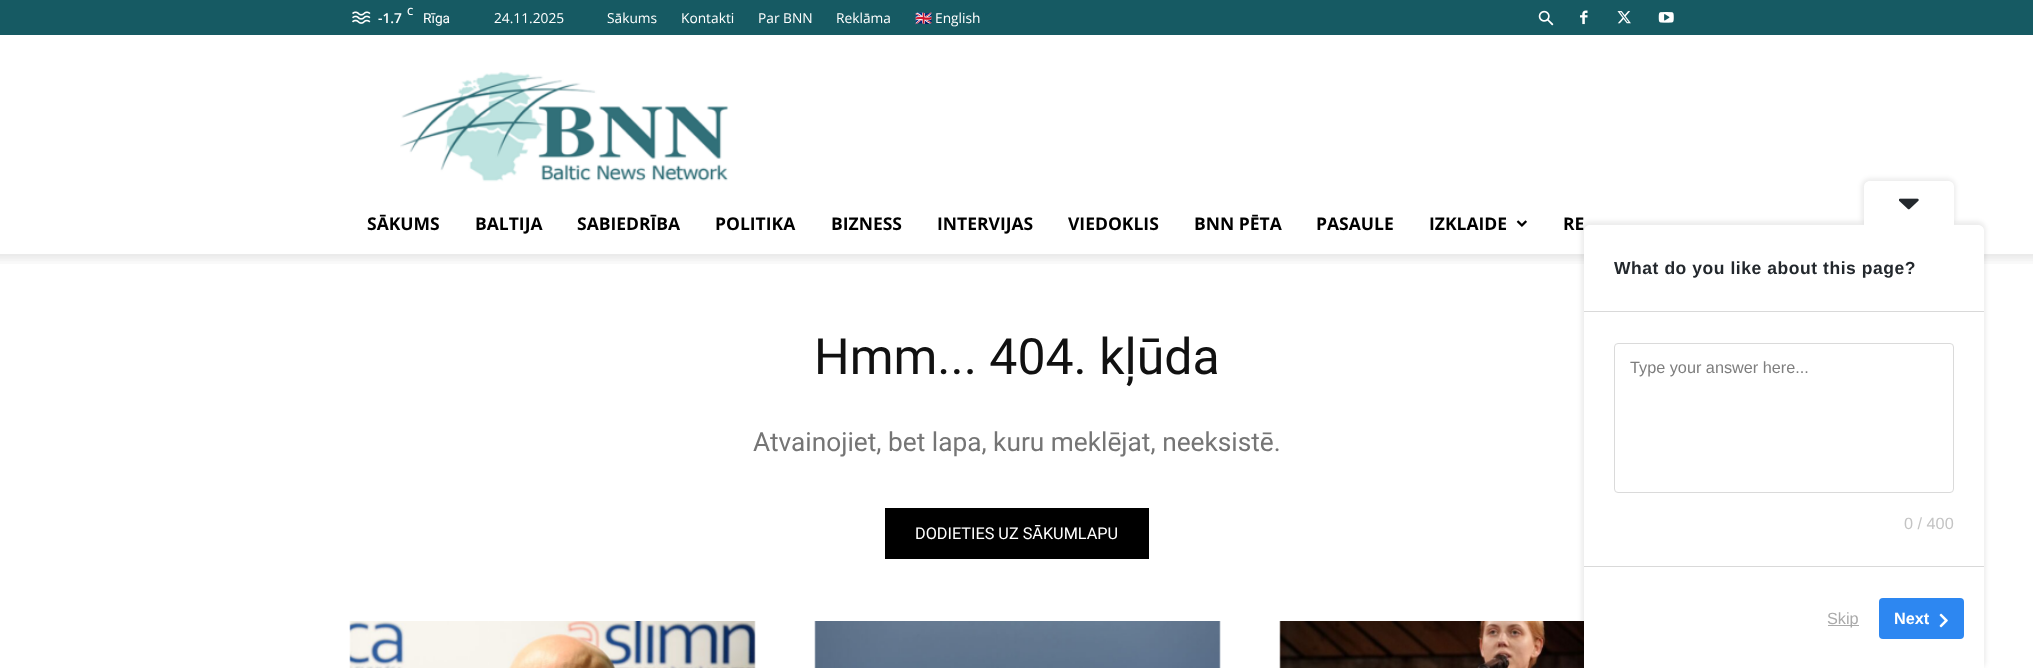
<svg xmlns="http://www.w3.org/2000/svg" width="2033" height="668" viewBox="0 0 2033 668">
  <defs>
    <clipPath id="clip1"><path d="M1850 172.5H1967L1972 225H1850Z"/></clipPath>
  </defs>
  <rect width="100%" height="100%" fill="rgb(255,255,255)"/>
  <rect x="0" y="0" width="2033" height="35" fill="rgb(22,90,99)"/>
  <image x="352" y="11" width="19" height="13" href="pic1.png"/>
  <text x="407" y="15" font-family="Open Sans" font-size="10" font-weight="600" fill="rgb(255,255,255)">C</text>
  <text x="378" y="23" font-family="Open Sans" font-size="13.75" font-weight="600" fill="rgb(255,255,255)">-1.7</text>
  <text x="423" y="23" font-family="Roboto" font-size="13.75" fill="rgb(255,255,255)">Rīga</text>
  <g font-family="Open Sans" font-size="13.75" fill="rgb(255,255,255)">
    <text x="494" y="23">24.11.2025</text>
    <text x="607" y="23">Sākums</text>
    <text x="681" y="23">Kontakti</text>
    <text x="758" y="23">Par BNN</text>
    <text x="836" y="23">Reklāma</text>
  </g>
  <text x="915" y="23" font-family="Noto Color Emoji" font-size="13.75" fill="rgb(255,255,255)">🇬🇧</text>
  <text x="935" y="23" font-family="Open Sans" font-size="13.75" fill="rgb(255,255,255)">English</text>
  <image x="1538" y="10" width="16" height="16" href="pic2.png"/>
  <image x="1580" y="10" width="8" height="15" href="pic3.png"/>
  <image x="1617" y="11" width="14" height="13" href="pic4.png"/>
  <image x="1658" y="12" width="16" height="11" href="pic5.png"/>
  <image x="400" y="71" width="329" height="111" href="pic6.png"/>
  <g font-family="Open Sans" font-size="17.5" font-weight="bold" fill="rgb(0,0,0)">
    <text x="367" y="230">SĀKUMS</text>
    <text x="475" y="230">BALTIJA</text>
    <text x="577" y="230">SABIEDRĪBA</text>
    <text x="715" y="230">POLITIKA</text>
    <text x="831" y="230">BIZNESS</text>
    <text x="937" y="230">INTERVIJAS</text>
    <text x="1068" y="230">VIEDOKLIS</text>
    <text x="1194" y="230">BNN PĒTA</text>
    <text x="1316" y="230">PASAULE</text>
    <text x="1429" y="230">IZKLAIDE</text>
  </g>
  <image x="1516" y="220" width="11" height="7" href="pic7.png"/>
  <text x="1563" y="230" font-family="Open Sans" font-size="17.5" font-weight="bold" fill="rgb(0,0,0)">RE</text>
  <image x="0" y="254" width="2033" height="10" href="pic8.png"/>
  <text x="814" y="374" font-family="Roboto" font-size="50" fill="rgb(17,17,17)">Hmm... 404. kļūda</text>
  <text x="753" y="451" font-family="Roboto" font-size="26.25" fill="rgb(117,117,117)">Atvainojiet, bet lapa, kuru meklējat, neeksistē.</text>
  <rect x="885" y="508" width="264" height="51" fill="rgb(0,0,0)"/>
  <text x="915" y="539" font-family="Roboto" font-size="16.25" fill="rgb(255,255,255)">DODIETIES UZ SĀKUMLAPU</text>
  <image x="349" y="621" width="407" height="47" href="pic9.png"/>
  <image x="814" y="621" width="407" height="47" href="pic10.png"/>
  <image x="1279" y="621" width="305" height="47" href="pic11.png"/>
  <rect x="1581" y="221" width="405" height="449" rx="9" fill="rgba(0,0,0,0.07)" filter="blur(2px)"/>
  <path d="M1590 225H1978C1981.5 225 1984 227.5 1984 231V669H1584V231C1584 227.5 1586.5 225 1590 225Z" fill="rgb(255,255,255)"/>
  <g clip-path="url(#clip1)">
    <rect x="1861" y="178" width="95" height="48" rx="9" fill="rgba(0,0,0,0.07)" filter="blur(2px)"/>
  </g>
  <path d="M1870 181H1948C1951.5 181 1954 183.5 1954 187V225H1864V187C1864 183.5 1866.5 181 1870 181Z" fill="rgb(255,255,255)"/>
  <image x="1899" y="198" width="20" height="12" href="pic12.png"/>
  <text x="1614" y="274" font-family="Liberation Sans" font-size="17.5" font-weight="bold" letter-spacing="0.55" fill="rgb(35,40,45)">What do you like about this page?</text>
  <rect x="1584" y="311" width="400" height="1" fill="rgb(217,217,217)"/>
  <rect x="1584" y="566" width="400" height="1" fill="rgb(217,217,217)"/>
  <rect x="1614.5" y="343.5" width="339" height="149" rx="3.5" fill="none" stroke="rgb(218,218,218)"/>
  <text x="1630" y="373" font-family="Liberation Sans" font-size="16.25" fill="rgb(126,126,126)">Type your answer here...</text>
  <text x="1904" y="529" font-family="Liberation Sans" font-size="16.25" fill="rgb(196,196,196)">0 / 400</text>
  <rect x="1828" y="625" width="31" height="1" fill="rgb(170,170,170)"/>
  <text x="1827" y="624" font-family="Liberation Sans" font-size="16.25" fill="rgb(170,170,170)">Skip</text>
  <rect x="1879" y="598" width="85" height="41" rx="4" fill="rgb(45,135,241)"/>
  <text x="1894" y="624" font-family="Liberation Sans" font-size="16.25" font-weight="bold" fill="rgb(255,255,255)">Next</text>
  <image x="1939" y="613" width="9" height="15" href="pic13.png"/>
</svg>
